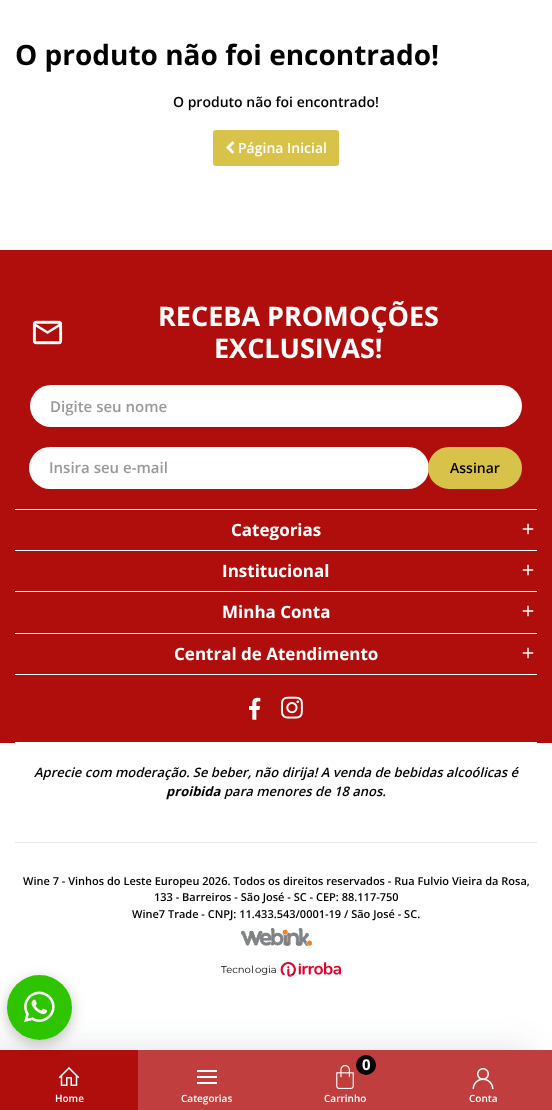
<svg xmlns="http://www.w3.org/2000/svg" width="552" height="1110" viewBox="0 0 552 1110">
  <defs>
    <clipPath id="clip1"><path d="M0 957H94V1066H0ZM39.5 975C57.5 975 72 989.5 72 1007.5C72 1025.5 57.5 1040 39.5 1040C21.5 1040 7 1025.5 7 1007.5C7 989.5 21.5 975 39.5 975Z" clip-rule="evenodd"/></clipPath>
  </defs>
  <rect width="100%" height="100%" fill="rgb(255,255,255)"/>
  <text x="15" y="65" font-family="Open Sans" font-size="28" font-weight="bold" fill="rgb(0,0,0)">O produto não foi encontrado!</text>
  <text x="173" y="107" font-family="Open Sans" font-size="14" font-weight="600" fill="rgb(0,0,0)">O produto não foi encontrado!</text>
  <rect x="214" y="131" width="124" height="34" rx="2" fill="rgb(216,194,74)" stroke="rgb(216,194,74)" stroke-width="2"/>
  <image x="226" y="141" width="9" height="13" href="pic1.png"/>
  <text x="238" y="153" font-family="Open Sans" font-size="14" font-weight="600" fill="rgb(255,255,255)">Página Inicial</text>
  <rect x="0" y="250" width="552" height="493" fill="rgb(176,14,12)"/>
  <image x="32" y="320" width="31" height="25" href="pic2.png"/>
  <g font-family="Open Sans" font-size="27" font-weight="bold" fill="rgb(255,255,255)">
    <text x="158" y="326">RECEBA PROMOÇÕES</text>
    <text x="214" y="358">EXCLUSIVAS!</text>
  </g>
  <rect x="30" y="385" width="492" height="42" rx="21" fill="rgb(255,255,255)"/>
  <text x="50" y="412" font-family="Open Sans" font-size="15" font-weight="600" fill="rgb(153,153,153)">Digite seu nome</text>
  <rect x="29" y="447" width="400" height="42" rx="21" fill="rgb(255,255,255)"/>
  <text x="49" y="473" font-family="Open Sans" font-size="15" font-weight="600" fill="rgb(153,153,153)">Insira seu e-mail</text>
  <rect x="429" y="448" width="92" height="40" rx="20" fill="rgb(216,194,74)" stroke="rgb(216,194,74)" stroke-width="2"/>
  <text x="450" y="473" font-family="Open Sans" font-size="14" font-weight="600" fill="rgb(0,0,0)">Assinar</text>
  <rect x="15" y="509" width="522" height="1" fill="rgb(255,255,255)"/>
  <rect x="15" y="550" width="522" height="1" fill="rgb(255,255,255)"/>
  <text x="231" y="536" font-family="Open Sans" font-size="17" font-weight="bold" fill="rgb(255,255,255)">Categorias</text>
  <image x="522" y="523" width="12" height="12" href="pic3.png"/>
  <rect x="15" y="591" width="522" height="1" fill="rgb(255,255,255)"/>
  <text x="222" y="577" font-family="Open Sans" font-size="17" font-weight="bold" fill="rgb(255,255,255)">Institucional</text>
  <image x="522" y="564" width="12" height="12" href="pic3.png"/>
  <rect x="15" y="633" width="522" height="1" fill="rgb(255,255,255)"/>
  <text x="222" y="618" font-family="Open Sans" font-size="17" font-weight="bold" fill="rgb(255,255,255)">Minha Conta</text>
  <image x="522" y="605" width="12" height="12" href="pic3.png"/>
  <rect x="15" y="674" width="522" height="1" fill="rgb(255,255,255)"/>
  <text x="174" y="660" font-family="Open Sans" font-size="17" font-weight="bold" fill="rgb(255,255,255)">Central de Atendimento</text>
  <image x="522" y="647" width="12" height="12" href="pic3.png"/>
  <rect x="15" y="742" width="522" height="1" fill="rgb(255,255,255)"/>
  <image x="249" y="697" width="12" height="23" href="pic4.png"/>
  <image x="281" y="696" width="22" height="23" href="pic5.png"/>
  <text x="34" y="777" font-family="Open Sans" font-size="13" font-weight="600" font-style="italic" fill="rgb(0,0,0)">Aprecie com moderação. Se beber, não dirija! A venda de bebidas alcoólicas é</text>
  <text x="166" y="796" font-family="Open Sans" font-size="13" font-weight="bold" font-style="italic" fill="rgb(0,0,0)">proibida</text>
  <text x="224" y="796" font-family="Open Sans" font-size="13" font-weight="600" font-style="italic" fill="rgb(0,0,0)">para menores de 18 anos.</text>
  <rect x="15" y="842" width="522" height="1" fill="rgb(229,229,229)"/>
  <g font-family="Open Sans" font-size="11" font-weight="600" fill="rgb(0,0,0)">
    <text x="23" y="885">Wine 7 - Vinhos do Leste Europeu 2026. Todos os direitos reservados - Rua Fulvio Vieira da Rosa,</text>
    <text x="154" y="901">133 - Barreiros - São José - SC - CEP: 88.117-750</text>
    <text x="132" y="918">Wine7 Trade - CNPJ: 11.433.543/0001-19 / São José - SC.</text>
  </g>
  <image x="241" y="928" width="71" height="18" href="pic6.png"/>
  <image x="280" y="962" width="61" height="15" href="pic7.png"/>
  <g font-family="Montserrat" font-size="10" fill="rgb(0,0,0)">
    <text x="221" y="973">Tecnol</text>
    <text x="255" y="973">ogia</text>
  </g>
  <rect x="-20" y="1050" width="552" height="60" fill="rgba(43,52,69,0.15)" filter="blur(16px)"/>
  <circle cx="39.5" cy="1007.5" r="32.5" fill="rgb(47,196,0)"/>
  <rect x="0" y="1050" width="138" height="60" fill="rgb(176,14,12)"/>
  <g clip-path="url(#clip1)">
    <rect x="7" y="979" width="65" height="65" rx="32.5" fill="rgba(0,0,0,0.24)" filter="blur(7px)"/>
  </g>
  <image x="24" y="991" width="31" height="32" href="pic8.png"/>
  <rect x="138" y="1050" width="414" height="60" fill="rgb(192,62,61)"/>
  <image x="58" y="1067" width="22" height="19" href="pic9.png"/>
  <text x="55" y="1102" font-family="Open Sans" font-size="10" font-weight="600" fill="rgb(255,255,255)">Home</text>
  <image x="197" y="1070" width="20" height="14" href="pic10.png"/>
  <text x="181" y="1102" font-family="Open Sans" font-size="10" font-weight="600" fill="rgb(255,255,255)">Categorias</text>
  <image x="336" y="1065" width="18" height="24" href="pic11.png"/>
  <circle cx="366" cy="1065" r="10" fill="rgb(0,0,0)"/>
  <text x="362" y="1070" font-family="Open Sans" font-size="15" font-weight="bold" fill="rgb(255,255,255)">0</text>
  <text x="324" y="1102" font-family="Open Sans" font-size="10" font-weight="600" fill="rgb(255,255,255)">Carrinho</text>
  <image x="472" y="1068" width="22" height="21" href="pic12.png"/>
  <text x="469" y="1102" font-family="Open Sans" font-size="10" font-weight="600" fill="rgb(255,255,255)">Conta</text>
</svg>
